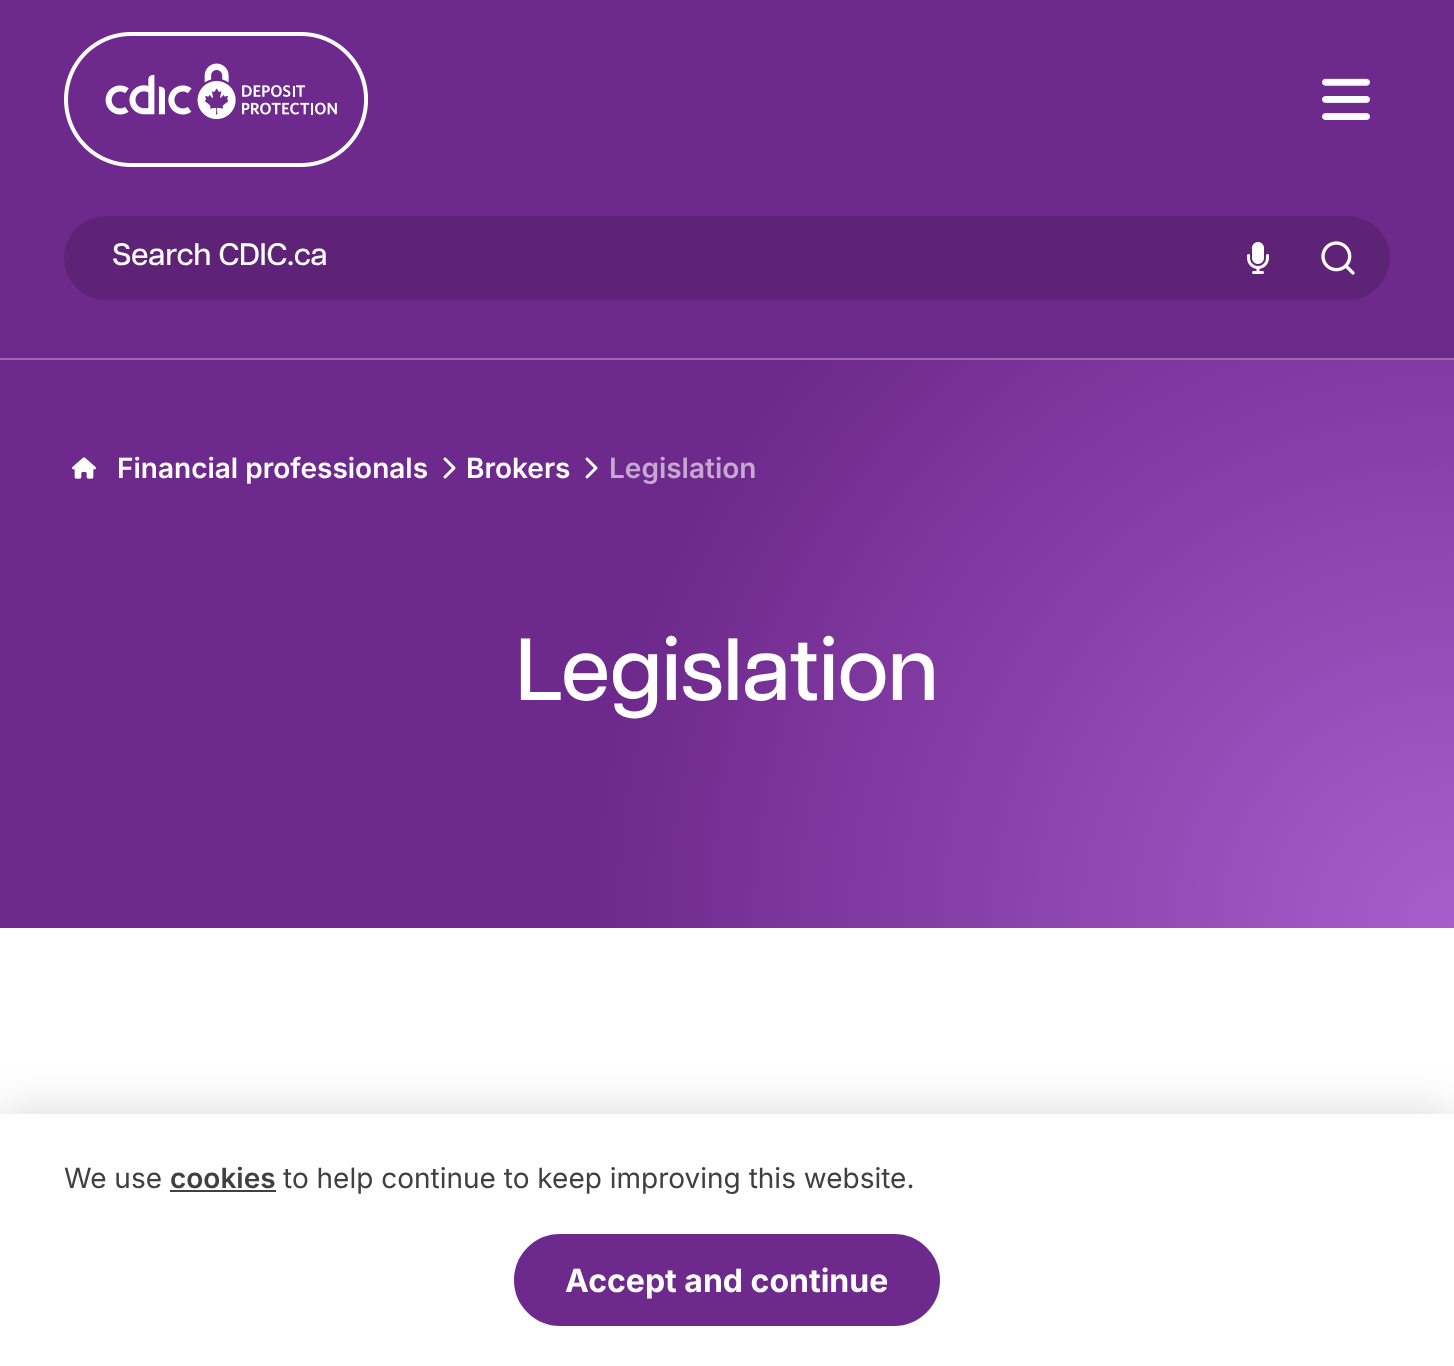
<svg xmlns="http://www.w3.org/2000/svg" width="1454" height="1366" viewBox="0 0 1454 1366">
  <defs>
    <radialGradient id="g1" gradientUnits="userSpaceOnUse" cx="1454" cy="928" r="1725"><stop offset="0" stop-color="rgb(168,93,205)"/><stop offset="0.5" stop-color="rgb(110,41,140)"/><stop offset="1" stop-color="rgb(110,41,140)"/></radialGradient>
  </defs>
  <rect width="100%" height="100%" fill="rgb(255,255,255)"/>
  <rect x="0" y="0" width="1454" height="358" fill="rgb(110,41,140)"/>
  <rect x="0" y="358" width="1454" height="2" fill="rgb(154,105,175)"/>
  <image x="64" y="32" width="304" height="135" href="pic1.png"/>
  <image x="1322" y="78" width="48" height="42" href="pic2.png"/>
  <rect x="64" y="216" width="1326" height="84" rx="42" fill="rgb(94,35,119)"/>
  <text x="112" y="265" font-family="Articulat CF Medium" font-size="31" font-weight="500" fill="rgb(255,255,255)">Search CDIC.ca</text>
  <image x="1321" y="241" width="34" height="34" href="pic3.png"/>
  <image x="1247" y="242" width="22" height="32" href="pic4.png"/>
  <rect x="0" y="360" width="1454" height="568" fill="url(#g1)"/>
  <image x="72" y="457" width="24" height="22" href="pic5.png"/>
  <text x="117" y="478" font-family="Inter" font-size="28" font-weight="600" fill="rgb(255,255,255)">Financial professionals</text>
  <image x="443" y="457" width="13" height="22" href="pic6.png"/>
  <text x="466" y="478" font-family="Inter" font-size="28" font-weight="600" fill="rgb(255,255,255)">Brokers</text>
  <image x="585" y="457" width="13" height="22" href="pic6.png"/>
  <text x="609" y="478" font-family="Inter" font-size="28" font-weight="600" fill="rgb(197,169,209)">Legislation</text>
  <text x="516" y="700" font-family="Articulat CF Medium" font-size="88" font-weight="500" fill="rgb(255,255,255)">Legislation</text>
  <rect x="0" y="1114" width="1454" height="252" fill="rgba(0,0,0,0.16)" filter="blur(24px)"/>
  <rect x="0" y="1114" width="1454" height="252" fill="rgb(255,255,255)"/>
  <text x="64" y="1188" font-family="Inter" font-size="28" fill="rgb(64,64,65)">We use</text>
  <text x="170" y="1188" font-family="Inter" font-size="28" font-weight="600" fill="rgb(64,64,65)">cookies</text>
  <rect x="170" y="1190" width="106" height="2" fill="rgb(64,64,65)"/>
  <text x="283" y="1188" font-family="Inter" font-size="28" fill="rgb(64,64,65)">to help continue to keep improving this website.</text>
  <rect x="516" y="1236" width="422" height="88" rx="44" fill="rgb(110,41,140)" stroke="rgb(110,41,140)" stroke-width="4"/>
  <text x="565" y="1292" font-family="Inter" font-size="32" font-weight="bold" fill="rgb(255,255,255)">Accept and continue</text>
</svg>
